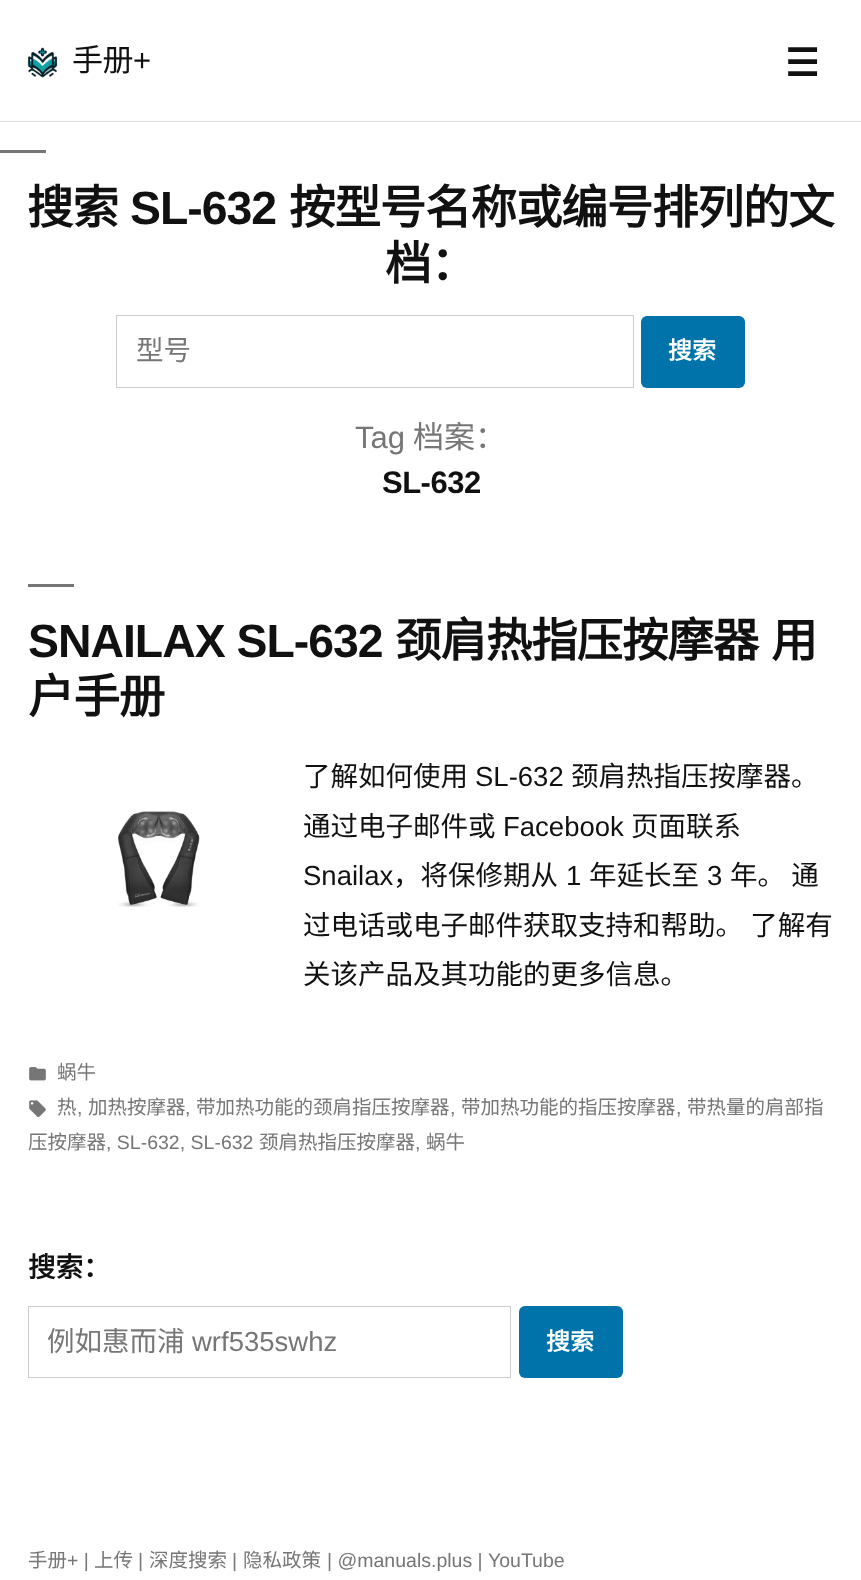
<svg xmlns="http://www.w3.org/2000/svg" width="861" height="1580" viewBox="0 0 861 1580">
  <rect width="100%" height="100%" fill="rgb(255,255,255)"/>
  <rect x="0" y="121" width="861" height="1" fill="rgb(224,224,224)"/>
  <image x="27" y="47" width="31" height="31" href="pic1.png"/>
  <text x="72" y="71" font-family="Noto Sans CJK SC" font-size="31" letter-spacing="-0.5" fill="rgb(17,17,17)">手册</text>
  <text x="133" y="71" font-family="Liberation Sans" font-size="31" letter-spacing="-0.5" fill="rgb(17,17,17)">+</text>
  <text x="785" y="76" font-family="DejaVu Sans" font-size="38" font-weight="bold" fill="rgb(17,17,17)">☰</text>
  <rect x="0" y="150" width="46" height="3" fill="rgb(118,118,118)"/>
  <text x="27" y="224" font-family="Noto Sans CJK SC" font-size="46.4" font-weight="bold" letter-spacing="-1" fill="rgb(17,17,17)">搜索</text>
  <text x="130" y="224" font-family="Liberation Sans" font-size="46.4" font-weight="bold" letter-spacing="-1" fill="rgb(17,17,17)">SL-632</text>
  <g font-family="Noto Sans CJK SC" font-size="46.4" font-weight="bold" letter-spacing="-1" fill="rgb(17,17,17)">
    <text x="289" y="224">按型号名称或编号排列的文</text>
    <text x="385" y="280">档：</text>
  </g>
  <rect x="116.5" y="315.5" width="517" height="72" fill="none" stroke="rgb(204,204,204)"/>
  <text x="136" y="360" font-family="Noto Sans CJK SC" font-size="27.5" fill="rgb(118,118,118)">型号</text>
  <rect x="641" y="316" width="104" height="72" rx="6" fill="rgb(0,115,170)"/>
  <text x="668" y="359" font-family="Noto Sans CJK SC" font-size="24" font-weight="bold" fill="rgb(255,255,255)">搜索</text>
  <text x="355" y="448" font-family="Liberation Sans" font-size="31" fill="rgb(118,118,118)">Tag</text>
  <text x="413" y="448" font-family="Noto Sans CJK SC" font-size="31" fill="rgb(118,118,118)">档案：</text>
  <text x="382" y="493" font-family="Liberation Sans" font-size="31" font-weight="bold" letter-spacing="-0.5" fill="rgb(17,17,17)">SL-632</text>
  <rect x="28" y="584" width="46" height="3" fill="rgb(118,118,118)"/>
  <text x="28" y="657" font-family="Liberation Sans" font-size="46.4" font-weight="bold" letter-spacing="-1" fill="rgb(17,17,17)">SNAILAX SL-632</text>
  <g font-family="Noto Sans CJK SC" font-size="46.4" font-weight="bold" letter-spacing="-1" fill="rgb(17,17,17)">
    <text x="395" y="657">颈肩热指压按摩器</text>
    <text x="771" y="657">用</text>
    <text x="28" y="713">户手册</text>
  </g>
  <image x="117" y="811" width="83" height="96" href="pic2.png"/>
  <text x="303" y="786" font-family="Noto Sans CJK SC" font-size="27.5" fill="rgb(17,17,17)">了解如何使用</text>
  <text x="475" y="786" font-family="Liberation Sans" font-size="27.5" fill="rgb(17,17,17)">SL-632</text>
  <g font-family="Noto Sans CJK SC" font-size="27.5" fill="rgb(17,17,17)">
    <text x="571" y="786">颈肩热指压按摩器。</text>
    <text x="303" y="836">通过电子邮件或</text>
  </g>
  <text x="503" y="836" font-family="Liberation Sans" font-size="27.5" fill="rgb(17,17,17)">Facebook</text>
  <text x="631" y="836" font-family="Noto Sans CJK SC" font-size="27.5" fill="rgb(17,17,17)">页面联系</text>
  <text x="303" y="885" font-family="Liberation Sans" font-size="27.5" fill="rgb(17,17,17)">Snailax</text>
  <text x="393" y="885" font-family="Noto Sans CJK SC" font-size="27.5" fill="rgb(17,17,17)">，将保修期从</text>
  <text x="566" y="885" font-family="Liberation Sans" font-size="27.5" fill="rgb(17,17,17)">1</text>
  <text x="589" y="885" font-family="Noto Sans CJK SC" font-size="27.5" fill="rgb(17,17,17)">年延长至</text>
  <text x="707" y="885" font-family="Liberation Sans" font-size="27.5" fill="rgb(17,17,17)">3</text>
  <g font-family="Noto Sans CJK SC" font-size="27.5" fill="rgb(17,17,17)">
    <text x="730" y="885">年。 通</text>
    <text>
      <tspan x="303" y="935" word-spacing="1">过电话或电子邮件获取支持和帮助。 了解有</tspan>
      <tspan x="303" y="984">关该产品及其功能的更多信息。</tspan>
    </text>
  </g>
  <image x="29" y="1067" width="17" height="14" href="pic3.png"/>
  <text x="57" y="1079" font-family="Noto Sans CJK SC" font-size="19.5" fill="rgb(118,118,118)">蜗牛</text>
  <image x="29" y="1100" width="17" height="18" href="pic4.png"/>
  <text x="57" y="1114" font-family="Noto Sans CJK SC" font-size="19.5" fill="rgb(118,118,118)">热</text>
  <text x="77" y="1114" font-family="Liberation Sans" font-size="19.5" fill="rgb(118,118,118)">,</text>
  <text x="88" y="1114" font-family="Noto Sans CJK SC" font-size="19.5" fill="rgb(118,118,118)">加热按摩器</text>
  <text x="185" y="1114" font-family="Liberation Sans" font-size="19.5" fill="rgb(118,118,118)">,</text>
  <text x="196" y="1114" font-family="Noto Sans CJK SC" font-size="19.5" fill="rgb(118,118,118)">带加热功能的颈肩指压按摩器</text>
  <text x="450" y="1114" font-family="Liberation Sans" font-size="19.5" fill="rgb(118,118,118)">,</text>
  <text x="461" y="1114" font-family="Noto Sans CJK SC" font-size="19.5" fill="rgb(118,118,118)">带加热功能的指压按摩器</text>
  <text x="676" y="1114" font-family="Liberation Sans" font-size="19.5" fill="rgb(118,118,118)">,</text>
  <g font-family="Noto Sans CJK SC" font-size="19.5" fill="rgb(118,118,118)">
    <text x="687" y="1114">带热量的肩部指</text>
    <text x="28" y="1149">压按摩器</text>
  </g>
  <text x="106" y="1149" font-family="Liberation Sans" font-size="19.5" fill="rgb(118,118,118)">, SL-632, SL-632</text>
  <text x="259" y="1149" font-family="Noto Sans CJK SC" font-size="19.5" fill="rgb(118,118,118)">颈肩热指压按摩器</text>
  <text x="415" y="1149" font-family="Liberation Sans" font-size="19.5" fill="rgb(118,118,118)">,</text>
  <text x="426" y="1149" font-family="Noto Sans CJK SC" font-size="19.5" fill="rgb(118,118,118)">蜗牛</text>
  <text x="28" y="1277" font-family="Noto Sans CJK SC" font-size="27.5" font-weight="bold" fill="rgb(17,17,17)">搜索：</text>
  <rect x="28.5" y="1306.5" width="482" height="71" fill="none" stroke="rgb(204,204,204)"/>
  <text x="47" y="1351" font-family="Noto Sans CJK SC" font-size="27.5" fill="rgb(118,118,118)">例如惠而浦</text>
  <text x="192" y="1351" font-family="Liberation Sans" font-size="27.5" fill="rgb(118,118,118)">wrf535swhz</text>
  <rect x="519" y="1306" width="104" height="72" rx="6" fill="rgb(0,115,170)"/>
  <text x="546" y="1350" font-family="Noto Sans CJK SC" font-size="24" font-weight="bold" fill="rgb(255,255,255)">搜索</text>
  <text x="28" y="1567" font-family="Noto Sans CJK SC" font-size="19.5" fill="rgb(118,118,118)">手册</text>
  <text x="67" y="1567" font-family="Liberation Sans" font-size="19.5" fill="rgb(118,118,118)">+ |</text>
  <text x="94" y="1567" font-family="Noto Sans CJK SC" font-size="19.5" fill="rgb(118,118,118)">上传</text>
  <text x="138" y="1567" font-family="Liberation Sans" font-size="19.5" fill="rgb(118,118,118)">|</text>
  <text x="149" y="1567" font-family="Noto Sans CJK SC" font-size="19.5" fill="rgb(118,118,118)">深度搜索</text>
  <text x="232" y="1567" font-family="Liberation Sans" font-size="19.5" fill="rgb(118,118,118)">|</text>
  <text x="243" y="1567" font-family="Noto Sans CJK SC" font-size="19.5" fill="rgb(118,118,118)">隐私政策</text>
  <g font-family="Liberation Sans" font-size="19.5" fill="rgb(118,118,118)">
    <text x="327" y="1567">| @manuals.plus |</text>
    <text x="488" y="1567">YouTube</text>
  </g>
</svg>
